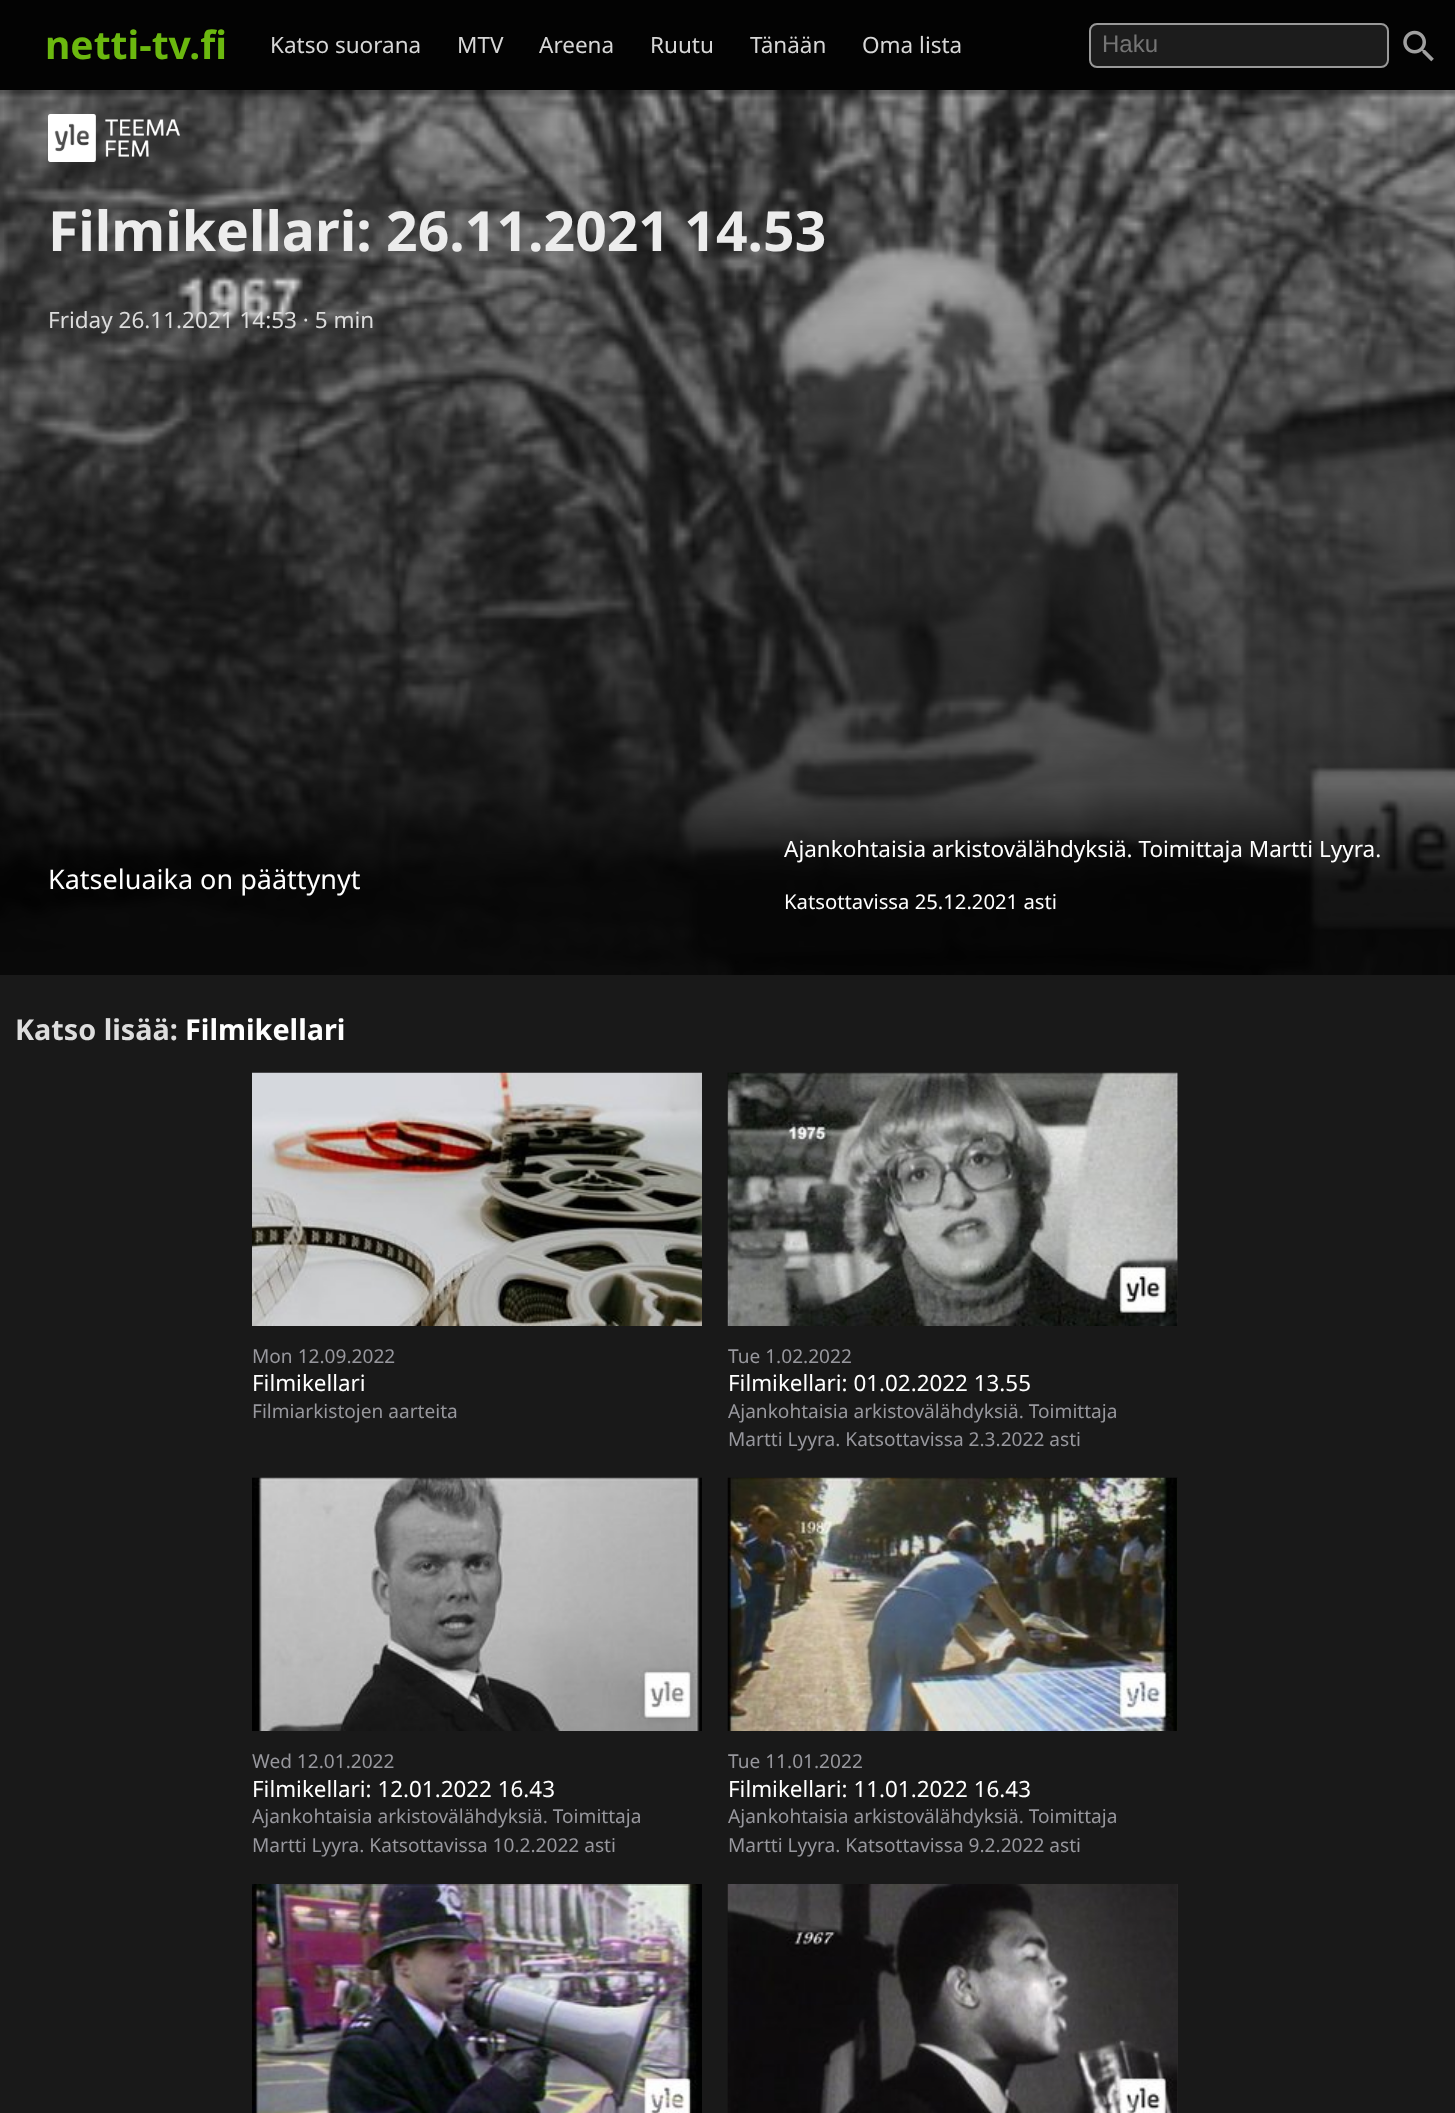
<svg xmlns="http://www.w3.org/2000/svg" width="1455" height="2113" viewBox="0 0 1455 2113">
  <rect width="100%" height="100%" fill="rgb(25,25,25)"/>
  <rect x="0" y="0" width="1455" height="90" fill="rgb(3,3,3)"/>
  <text x="45" y="59" font-family="Noto Sans" font-size="39" font-weight="bold" fill="rgb(107,184,15)">netti-tv.fi</text>
  <g font-family="Noto Sans" font-size="22.5" fill="rgb(215,215,215)">
    <text x="270" y="53">Katso suorana</text>
    <text x="457" y="53">MTV</text>
    <text x="539" y="53">Areena</text>
    <text x="650" y="53">Ruutu</text>
    <text x="750" y="53">Tänään</text>
    <text x="862" y="53">Oma lista</text>
  </g>
  <rect x="1090" y="24" width="298" height="43" rx="7" fill="rgb(28,28,28)" stroke="rgb(153,153,153)" stroke-width="2"/>
  <text x="1102" y="52" font-family="Liberation Sans" font-size="24" fill="rgb(117,117,117)">Haku</text>
  <image x="1403" y="30" width="31" height="32" href="pic1.png"/>
  <image x="0" y="90" width="1455" height="885" href="pic2.png"/>
  <image x="48" y="114" width="132" height="48" href="pic3.png"/>
  <text x="48" y="251" font-family="Noto Sans" font-size="55.25" font-weight="bold" fill="rgb(236,236,236)">Filmikellari: 26.11.2021 14.53</text>
  <text x="48" y="328" font-family="Noto Sans" font-size="22.5" fill="rgb(221,221,221)">Friday 26.11.2021 14:53 · 5 min</text>
  <text x="48" y="889" font-family="Noto Sans" font-size="27" fill="rgb(255,255,255)">Katseluaika on päättynyt</text>
  <text x="784" y="857" font-family="Noto Sans" font-size="22.5" fill="rgb(255,255,255)">Ajankohtaisia arkistovälähdyksiä. Toimittaja Martti Lyyra.</text>
  <text x="784" y="909" font-family="Noto Sans" font-size="20.25" fill="rgb(255,255,255)">Katsottavissa 25.12.2021 asti</text>
  <text x="15" y="1040" font-family="Noto Sans" font-size="28.75" font-weight="bold" fill="rgb(221,221,221)">Katso lisää:</text>
  <text x="185" y="1040" font-family="Noto Sans" font-size="28.75" font-weight="bold" fill="rgb(255,255,255)">Filmikellari</text>
  <image x="252" y="1072" width="450" height="254" href="pic4.png"/>
  <text x="252" y="1363" font-family="Noto Sans" font-size="19.1" fill="rgb(151,151,157)">Mon 12.09.2022</text>
  <text x="252" y="1391" font-family="Noto Sans" font-size="22.4" fill="rgb(255,255,255)">Filmikellari</text>
  <text x="252" y="1418" font-family="Noto Sans" font-size="19.1" fill="rgb(151,151,157)">Filmiarkistojen aarteita</text>
  <rect x="1177" y="1073" width="1" height="253" fill="rgb(44,43,42)"/>
  <image x="727" y="1072" width="451" height="254" href="pic5.png"/>
  <text x="728" y="1363" font-family="Noto Sans" font-size="19.1" fill="rgb(151,151,157)">Tue 1.02.2022</text>
  <text x="728" y="1391" font-family="Noto Sans" font-size="22.4" fill="rgb(255,255,255)">Filmikellari: 01.02.2022 13.55</text>
  <g font-family="Noto Sans" font-size="19.1" fill="rgb(151,151,157)">
    <text>
      <tspan x="728" y="1418">Ajankohtaisia arkistovälähdyksiä. Toimittaja</tspan>
      <tspan x="728" y="1446">Martti Lyyra. Katsottavissa 2.3.2022 asti</tspan>
    </text>
  </g>
  <image x="252" y="1477" width="450" height="254" href="pic6.png"/>
  <text x="252" y="1768" font-family="Noto Sans" font-size="19.1" fill="rgb(151,151,157)">Wed 12.01.2022</text>
  <text x="252" y="1797" font-family="Noto Sans" font-size="22.4" fill="rgb(255,255,255)">Filmikellari: 12.01.2022 16.43</text>
  <g font-family="Noto Sans" font-size="19.1" fill="rgb(151,151,157)">
    <text>
      <tspan x="252" y="1823">Ajankohtaisia arkistovälähdyksiä. Toimittaja</tspan>
      <tspan x="252" y="1852">Martti Lyyra. Katsottavissa 10.2.2022 asti</tspan>
    </text>
  </g>
  <rect x="1177" y="1478" width="1" height="253" fill="rgb(44,43,42)"/>
  <image x="727" y="1477" width="451" height="254" href="pic7.png"/>
  <text x="728" y="1768" font-family="Noto Sans" font-size="19.1" fill="rgb(151,151,157)">Tue 11.01.2022</text>
  <text x="728" y="1797" font-family="Noto Sans" font-size="22.4" fill="rgb(255,255,255)">Filmikellari: 11.01.2022 16.43</text>
  <g font-family="Noto Sans" font-size="19.1" fill="rgb(151,151,157)">
    <text>
      <tspan x="728" y="1823">Ajankohtaisia arkistovälähdyksiä. Toimittaja</tspan>
      <tspan x="728" y="1852">Martti Lyyra. Katsottavissa 9.2.2022 asti</tspan>
    </text>
  </g>
  <image x="252" y="1884" width="450" height="229" href="pic8.png"/>
  <rect x="1177" y="1884" width="1" height="229" fill="rgb(44,43,42)"/>
  <image x="727" y="1884" width="451" height="229" href="pic9.png"/>
</svg>
